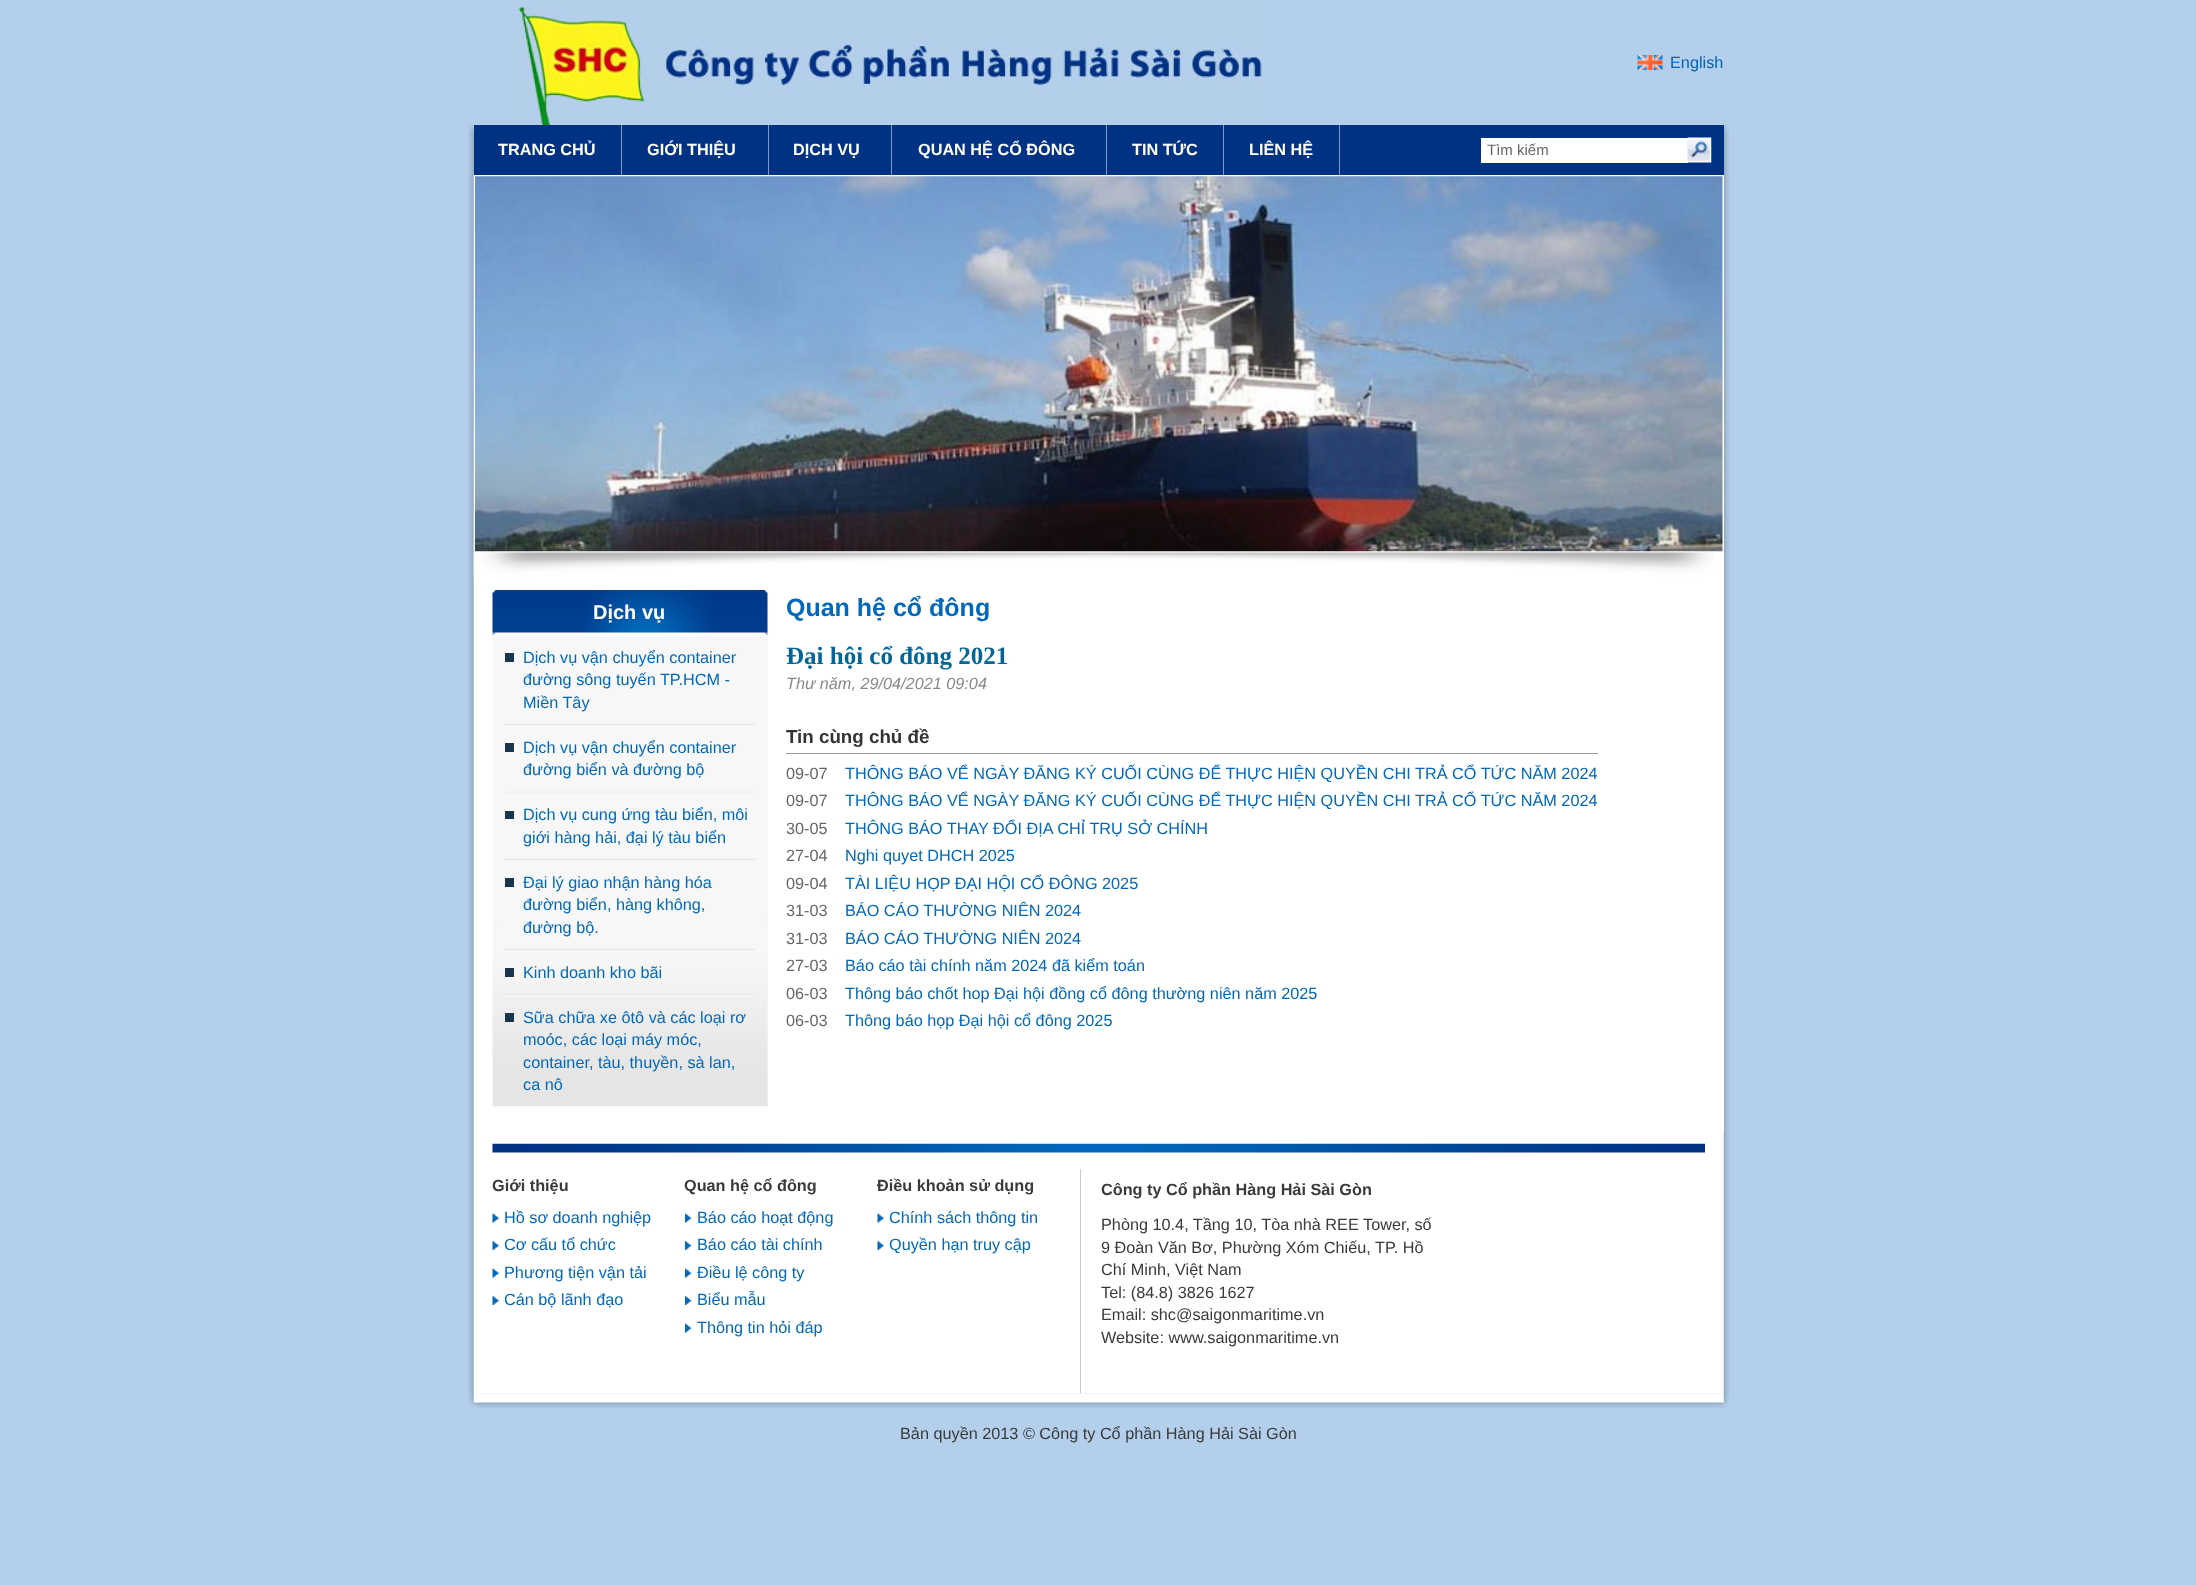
<svg xmlns="http://www.w3.org/2000/svg" width="2196" height="1585" viewBox="0 0 2196 1585">
  <rect width="100%" height="100%" fill="rgb(180,207,235)"/>
  <image x="468" y="124" width="1261" height="51" href="pic1.png"/>
  <image x="513" y="0" width="751" height="125" href="pic2.png"/>
  <image x="1637" y="55" width="26" height="15" href="pic3.png"/>
  <text x="1670" y="68" font-family="Liberation Sans" font-size="16.25" fill="rgb(2,98,180)">English</text>
  <rect x="474" y="125" width="1250" height="50" fill="rgb(0,50,132)"/>
  <rect x="621" y="125" width="1" height="50" fill="rgb(128,153,194)"/>
  <text x="498" y="155" font-family="Liberation Sans" font-size="16.25" font-weight="bold" fill="rgb(255,255,255)">TRANG CHỦ</text>
  <rect x="768" y="125" width="1" height="50" fill="rgb(128,153,194)"/>
  <text x="647" y="155" font-family="Liberation Sans" font-size="16.25" font-weight="bold" fill="rgb(255,255,255)">GIỚI THIỆU</text>
  <rect x="891" y="125" width="1" height="50" fill="rgb(128,153,194)"/>
  <text x="793" y="155" font-family="Liberation Sans" font-size="16.25" font-weight="bold" fill="rgb(255,255,255)">DỊCH VỤ</text>
  <rect x="1106" y="125" width="1" height="50" fill="rgb(128,153,194)"/>
  <text x="918" y="155" font-family="Liberation Sans" font-size="16.25" font-weight="bold" fill="rgb(255,255,255)">QUAN HỆ CỔ ĐÔNG</text>
  <rect x="1223" y="125" width="1" height="50" fill="rgb(128,153,194)"/>
  <text x="1132" y="155" font-family="Liberation Sans" font-size="16.25" font-weight="bold" fill="rgb(255,255,255)">TIN TỨC</text>
  <rect x="1339" y="125" width="1" height="50" fill="rgb(128,153,194)"/>
  <text x="1249" y="155" font-family="Liberation Sans" font-size="16.25" font-weight="bold" fill="rgb(255,255,255)">LIÊN HỆ</text>
  <rect x="1481" y="138" width="207" height="25" fill="rgb(255,255,255)"/>
  <text x="1487" y="155" font-family="Liberation Sans" font-size="15" fill="rgb(102,102,102)">Tìm kiếm</text>
  <image x="1687" y="137" width="25" height="26" href="pic4.png"/>
  <image x="468" y="175" width="1262" height="1219" href="pic5.png"/>
  <rect x="1723" y="175" width="1" height="956" fill="rgb(255,255,255)"/>
  <image x="475" y="176" width="1248" height="376" href="pic6.png"/>
  <image x="473" y="552" width="1240" height="26" href="pic7.png"/>
  <image x="492" y="590" width="276" height="47" href="pic8.png"/>
  <text x="593" y="619" font-family="Liberation Sans" font-size="20" font-weight="bold" fill="rgb(255,255,255)">Dịch vụ</text>
  <rect x="493" y="636" width="275" height="470" fill="rgb(247,247,247)"/>
  <image x="492" y="919" width="276" height="188" href="pic9.png"/>
  <rect x="505" y="653" width="9" height="9" fill="rgb(26,53,78)"/>
  <g font-family="Liberation Sans" font-size="16.25" fill="rgb(2,104,187)">
    <text>
      <tspan x="523" y="663">Dịch vụ vận chuyển container</tspan>
      <tspan x="523" y="685">đường sông tuyến TP.HCM -</tspan>
      <tspan x="523" y="708">Miền Tây</tspan>
    </text>
  </g>
  <image x="505" y="723" width="250" height="2" href="pic10.png"/>
  <rect x="505" y="743" width="9" height="9" fill="rgb(26,53,78)"/>
  <g font-family="Liberation Sans" font-size="16.25" fill="rgb(2,104,187)">
    <text>
      <tspan x="523" y="753">Dịch vụ vận chuyển container</tspan>
      <tspan x="523" y="775">đường biển và đường bộ</tspan>
    </text>
  </g>
  <rect x="505" y="791" width="250" height="3" fill="rgb(242,242,242)"/>
  <rect x="505" y="811" width="9" height="8" fill="rgb(26,53,78)"/>
  <g font-family="Liberation Sans" font-size="16.25" fill="rgb(2,104,187)">
    <text>
      <tspan x="523" y="820">Dịch vụ cung ứng tàu biển, môi</tspan>
      <tspan x="523" y="843">giới hàng hải, đại lý tàu biển</tspan>
    </text>
  </g>
  <image x="505" y="858" width="250" height="2" href="pic10.png"/>
  <rect x="505" y="878" width="9" height="9" fill="rgb(26,53,78)"/>
  <g font-family="Liberation Sans" font-size="16.25" fill="rgb(2,104,187)">
    <text>
      <tspan x="523" y="888">Đại lý giao nhận hàng hóa</tspan>
      <tspan x="523" y="910">đường biển, hàng không,</tspan>
      <tspan x="523" y="933">đường bộ.</tspan>
    </text>
  </g>
  <image x="505" y="948" width="250" height="2" href="pic10.png"/>
  <rect x="505" y="968" width="9" height="9" fill="rgb(26,53,78)"/>
  <text x="523" y="978" font-family="Liberation Sans" font-size="16.25" fill="rgb(2,104,187)">Kinh doanh kho bãi</text>
  <image x="505" y="994" width="250" height="2" href="pic11.png"/>
  <rect x="505" y="1013" width="9" height="9" fill="rgb(26,53,78)"/>
  <g font-family="Liberation Sans" font-size="16.25" fill="rgb(2,104,187)">
    <text>
      <tspan x="523" y="1023">Sữa chữa xe ôtô và các loại rơ</tspan>
      <tspan x="523" y="1045">moóc, các loại máy móc,</tspan>
      <tspan x="523" y="1068">container, tàu, thuyền, sà lan,</tspan>
      <tspan x="523" y="1090">ca nô</tspan>
    </text>
  </g>
  <text x="786" y="616" font-family="Liberation Sans" font-size="25" font-weight="bold" fill="rgb(2,104,187)">Quan hệ cổ đông</text>
  <text x="786" y="664" font-family="Liberation Serif" font-size="25" font-weight="bold" fill="rgb(0,102,153)">Đại hội cổ đông 2021</text>
  <text x="786" y="689" font-family="Liberation Sans" font-size="16.25" font-style="italic" fill="rgb(136,136,136)">Thư năm, 29/04/2021 09:04</text>
  <rect x="786" y="753" width="812" height="1" fill="rgb(153,153,153)"/>
  <text x="786" y="743" font-family="Liberation Sans" font-size="18.75" font-weight="bold" fill="rgb(51,51,51)">Tin cùng chủ đề</text>
  <text x="786" y="779" font-family="Liberation Sans" font-size="16.25" fill="rgb(102,102,102)">09-07</text>
  <text x="845" y="779" font-family="Liberation Sans" font-size="16.25" fill="rgb(2,104,187)">THÔNG BÁO VỂ NGÀY ĐĂNG KÝ CUỐI CÙNG ĐỂ THỰC HIỆN QUYỀN CHI TRẢ CỔ TỨC NĂM 2024</text>
  <text x="786" y="806" font-family="Liberation Sans" font-size="16.25" fill="rgb(102,102,102)">09-07</text>
  <text x="845" y="806" font-family="Liberation Sans" font-size="16.25" fill="rgb(2,104,187)">THÔNG BÁO VỂ NGÀY ĐĂNG KÝ CUỐI CÙNG ĐỂ THỰC HIỆN QUYỀN CHI TRẢ CỔ TỨC NĂM 2024</text>
  <text x="786" y="834" font-family="Liberation Sans" font-size="16.25" fill="rgb(102,102,102)">30-05</text>
  <text x="845" y="834" font-family="Liberation Sans" font-size="16.25" fill="rgb(2,104,187)">THÔNG BÁO THAY ĐỔI ĐỊA CHỈ TRỤ SỞ CHÍNH</text>
  <text x="786" y="861" font-family="Liberation Sans" font-size="16.25" fill="rgb(102,102,102)">27-04</text>
  <text x="845" y="861" font-family="Liberation Sans" font-size="16.25" fill="rgb(2,104,187)">Nghi quyet DHCH 2025</text>
  <text x="786" y="889" font-family="Liberation Sans" font-size="16.25" fill="rgb(102,102,102)">09-04</text>
  <text x="845" y="889" font-family="Liberation Sans" font-size="16.25" fill="rgb(2,104,187)">TÀI LIỆU HỌP ĐẠI HỘI CỔ ĐÔNG 2025</text>
  <text x="786" y="916" font-family="Liberation Sans" font-size="16.25" fill="rgb(102,102,102)">31-03</text>
  <text x="845" y="916" font-family="Liberation Sans" font-size="16.25" fill="rgb(2,104,187)">BÁO CÁO THƯỜNG NIÊN 2024</text>
  <text x="786" y="944" font-family="Liberation Sans" font-size="16.25" fill="rgb(102,102,102)">31-03</text>
  <text x="845" y="944" font-family="Liberation Sans" font-size="16.25" fill="rgb(2,104,187)">BÁO CÁO THƯỜNG NIÊN 2024</text>
  <text x="786" y="971" font-family="Liberation Sans" font-size="16.25" fill="rgb(102,102,102)">27-03</text>
  <text x="845" y="971" font-family="Liberation Sans" font-size="16.25" fill="rgb(2,104,187)">Báo cáo tài chính năm 2024 đã kiểm toán</text>
  <text x="786" y="999" font-family="Liberation Sans" font-size="16.25" fill="rgb(102,102,102)">06-03</text>
  <text x="845" y="999" font-family="Liberation Sans" font-size="16.25" fill="rgb(2,104,187)">Thông báo chốt hop Đại hội đồng cổ đông thường niên năm 2025</text>
  <text x="786" y="1026" font-family="Liberation Sans" font-size="16.25" fill="rgb(102,102,102)">06-03</text>
  <text x="845" y="1026" font-family="Liberation Sans" font-size="16.25" fill="rgb(2,104,187)">Thông báo họp Đại hội cổ đông 2025</text>
  <image x="492" y="1143" width="1213" height="10" href="pic12.png"/>
  <text x="492" y="1191" font-family="Liberation Sans" font-size="16.25" font-weight="bold" fill="rgb(58,58,58)">Giới thiệu</text>
  <image x="492" y="1213" width="7" height="10" href="pic13.png"/>
  <text x="504" y="1223" font-family="Liberation Sans" font-size="16.25" fill="rgb(2,104,187)">Hồ sơ doanh nghiệp</text>
  <image x="492" y="1241" width="7" height="9" href="pic14.png"/>
  <text x="504" y="1250" font-family="Liberation Sans" font-size="16.25" fill="rgb(2,104,187)">Cơ cấu tổ chức</text>
  <image x="492" y="1268" width="7" height="10" href="pic13.png"/>
  <text x="504" y="1278" font-family="Liberation Sans" font-size="16.25" fill="rgb(2,104,187)">Phương tiện vận tải</text>
  <image x="492" y="1296" width="7" height="9" href="pic14.png"/>
  <text x="504" y="1305" font-family="Liberation Sans" font-size="16.25" fill="rgb(2,104,187)">Cán bộ lãnh đạo</text>
  <text x="684" y="1191" font-family="Liberation Sans" font-size="16.25" font-weight="bold" fill="rgb(58,58,58)">Quan hệ cổ đông</text>
  <image x="685" y="1213" width="7" height="10" href="pic15.png"/>
  <text x="697" y="1223" font-family="Liberation Sans" font-size="16.25" fill="rgb(2,104,187)">Báo cáo hoạt động</text>
  <image x="685" y="1241" width="7" height="9" href="pic16.png"/>
  <text x="697" y="1250" font-family="Liberation Sans" font-size="16.25" fill="rgb(2,104,187)">Báo cáo tài chính</text>
  <image x="685" y="1268" width="7" height="10" href="pic15.png"/>
  <text x="697" y="1278" font-family="Liberation Sans" font-size="16.25" fill="rgb(2,104,187)">Điều lệ công ty</text>
  <image x="685" y="1296" width="7" height="9" href="pic16.png"/>
  <text x="697" y="1305" font-family="Liberation Sans" font-size="16.25" fill="rgb(2,104,187)">Biểu mẫu</text>
  <image x="685" y="1323" width="7" height="10" href="pic15.png"/>
  <text x="697" y="1333" font-family="Liberation Sans" font-size="16.25" fill="rgb(2,104,187)">Thông tin hỏi đáp</text>
  <text x="877" y="1191" font-family="Liberation Sans" font-size="16.25" font-weight="bold" fill="rgb(58,58,58)">Điều khoản sử dụng</text>
  <image x="877" y="1213" width="7" height="10" href="pic13.png"/>
  <text x="889" y="1223" font-family="Liberation Sans" font-size="16.25" fill="rgb(2,104,187)">Chính sách thông tin</text>
  <image x="877" y="1241" width="7" height="9" href="pic14.png"/>
  <text x="889" y="1250" font-family="Liberation Sans" font-size="16.25" fill="rgb(2,104,187)">Quyền hạn truy cập</text>
  <rect x="1080" y="1169" width="1" height="225" fill="rgb(204,204,204)"/>
  <text x="1101" y="1195" font-family="Liberation Sans" font-size="16.25" font-weight="bold" fill="rgb(58,58,58)">Công ty Cổ phần Hàng Hải Sài Gòn</text>
  <g font-family="Liberation Sans" font-size="16.25" fill="rgb(58,58,58)">
    <text>
      <tspan x="1101" y="1230">Phòng 10.4, Tầng 10, Tòa nhà REE Tower, số</tspan>
      <tspan x="1101" y="1253">9 Đoàn Văn Bơ, Phường Xóm Chiếu, TP. Hồ</tspan>
      <tspan x="1101" y="1275">Chí Minh, Việt Nam</tspan>
      <tspan x="1101" y="1298">Tel: (84.8) 3826 1627</tspan>
      <tspan x="1101" y="1320">Email: shc@saigonmaritime.vn</tspan>
      <tspan x="1101" y="1343">Website: www.saigonmaritime.vn</tspan>
    </text>
  </g>
  <image x="468" y="1393" width="1261" height="15" href="pic17.png"/>
  <text x="900" y="1439" font-family="Liberation Sans" font-size="16.25" fill="rgb(58,58,58)">Bản quyền 2013 © Công ty Cổ phần Hàng Hải Sài Gòn</text>
</svg>
